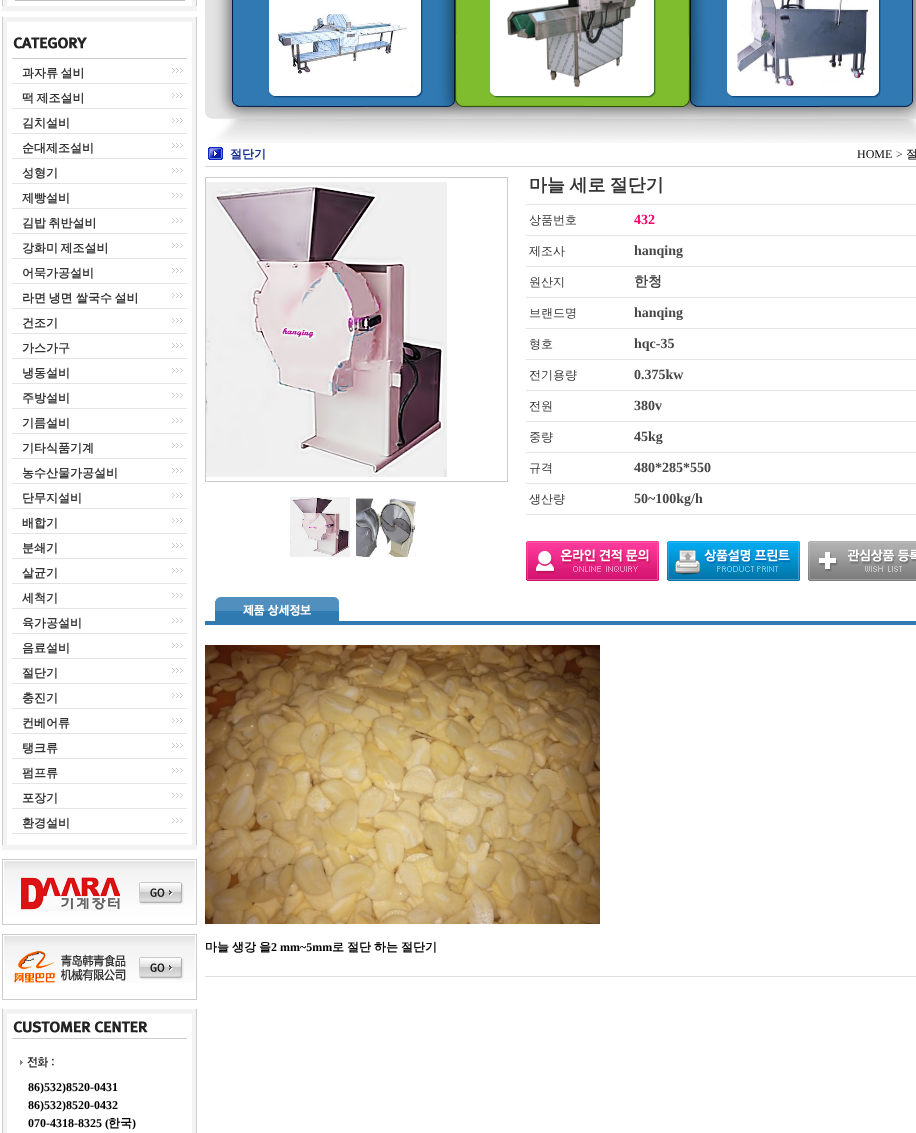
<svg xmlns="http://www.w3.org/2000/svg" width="916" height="1133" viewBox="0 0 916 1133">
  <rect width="100%" height="100%" fill="rgb(255,255,255)"/>
  <image x="2" y="0" width="195" height="6" href="pic1.png"/>
  <rect x="15.5" y="-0.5" width="169" height="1" fill="none" stroke="rgb(191,191,191)"/>
  <rect x="2" y="6" width="195" height="5" fill="rgb(243,243,243)"/>
  <image x="2" y="17" width="195" height="828" href="pic2.png"/>
  <rect x="3" y="17" width="193" height="5" fill="rgb(243,243,243)"/>
  <rect x="12" y="58" width="175" height="1" fill="rgb(204,204,204)"/>
  <image x="13" y="37" width="74" height="12" href="pic3.png"/>
  <rect x="12" y="83" width="175" height="1" fill="rgb(228,228,228)"/>
  <text x="22" y="77" word-spacing="-1" font-family="WenQuanYi Zen Hei" font-size="12" font-weight="bold" fill="rgb(52,52,52)">과자류 설비</text>
  <image x="172" y="68" width="11" height="5" href="pic4.png"/>
  <rect x="12" y="108" width="175" height="1" fill="rgb(228,228,228)"/>
  <text x="22" y="102" word-spacing="-1" font-family="WenQuanYi Zen Hei" font-size="12" font-weight="bold" fill="rgb(52,52,52)">떡 제조설비</text>
  <image x="172" y="93" width="11" height="5" href="pic4.png"/>
  <rect x="12" y="133" width="175" height="1" fill="rgb(228,228,228)"/>
  <text x="22" y="127" font-family="WenQuanYi Zen Hei" font-size="12" font-weight="bold" fill="rgb(52,52,52)">김치설비</text>
  <image x="172" y="118" width="11" height="5" href="pic4.png"/>
  <rect x="12" y="158" width="175" height="1" fill="rgb(228,228,228)"/>
  <text x="22" y="152" font-family="WenQuanYi Zen Hei" font-size="12" font-weight="bold" fill="rgb(52,52,52)">순대제조설비</text>
  <image x="172" y="143" width="11" height="5" href="pic4.png"/>
  <rect x="12" y="183" width="175" height="1" fill="rgb(228,228,228)"/>
  <text x="22" y="177" font-family="WenQuanYi Zen Hei" font-size="12" font-weight="bold" fill="rgb(52,52,52)">성형기</text>
  <image x="172" y="168" width="11" height="5" href="pic4.png"/>
  <rect x="12" y="208" width="175" height="1" fill="rgb(228,228,228)"/>
  <text x="22" y="202" font-family="WenQuanYi Zen Hei" font-size="12" font-weight="bold" fill="rgb(52,52,52)">제빵설비</text>
  <image x="172" y="193" width="11" height="5" href="pic4.png"/>
  <rect x="12" y="233" width="175" height="1" fill="rgb(228,228,228)"/>
  <text x="22" y="227" word-spacing="-1" font-family="WenQuanYi Zen Hei" font-size="12" font-weight="bold" fill="rgb(52,52,52)">김밥 취반설비</text>
  <image x="172" y="218" width="11" height="5" href="pic4.png"/>
  <rect x="12" y="258" width="175" height="1" fill="rgb(228,228,228)"/>
  <text x="22" y="252" word-spacing="-1" font-family="WenQuanYi Zen Hei" font-size="12" font-weight="bold" fill="rgb(52,52,52)">강화미 제조설비</text>
  <image x="172" y="243" width="11" height="5" href="pic4.png"/>
  <rect x="12" y="283" width="175" height="1" fill="rgb(228,228,228)"/>
  <text x="22" y="277" font-family="WenQuanYi Zen Hei" font-size="12" font-weight="bold" fill="rgb(52,52,52)">어묵가공설비</text>
  <image x="172" y="268" width="11" height="5" href="pic4.png"/>
  <rect x="12" y="308" width="175" height="1" fill="rgb(228,228,228)"/>
  <g font-family="WenQuanYi Zen Hei" font-size="12" font-weight="bold" fill="rgb(52,52,52)">
    <text x="22" y="302" word-spacing="-1">라면 냉면</text>
    <text x="76" y="302" word-spacing="-1">쌀국수 설비</text>
  </g>
  <image x="172" y="293" width="11" height="5" href="pic4.png"/>
  <rect x="12" y="333" width="175" height="1" fill="rgb(228,228,228)"/>
  <text x="22" y="327" font-family="WenQuanYi Zen Hei" font-size="12" font-weight="bold" fill="rgb(52,52,52)">건조기</text>
  <image x="172" y="318" width="11" height="5" href="pic4.png"/>
  <rect x="12" y="358" width="175" height="1" fill="rgb(228,228,228)"/>
  <text x="22" y="352" font-family="WenQuanYi Zen Hei" font-size="12" font-weight="bold" fill="rgb(52,52,52)">가스가구</text>
  <image x="172" y="343" width="11" height="5" href="pic4.png"/>
  <rect x="12" y="383" width="175" height="1" fill="rgb(228,228,228)"/>
  <text x="22" y="377" font-family="WenQuanYi Zen Hei" font-size="12" font-weight="bold" fill="rgb(52,52,52)">냉동설비</text>
  <image x="172" y="368" width="11" height="5" href="pic4.png"/>
  <rect x="12" y="408" width="175" height="1" fill="rgb(228,228,228)"/>
  <text x="22" y="402" font-family="WenQuanYi Zen Hei" font-size="12" font-weight="bold" fill="rgb(52,52,52)">주방설비</text>
  <image x="172" y="393" width="11" height="5" href="pic4.png"/>
  <rect x="12" y="433" width="175" height="1" fill="rgb(228,228,228)"/>
  <text x="22" y="427" font-family="WenQuanYi Zen Hei" font-size="12" font-weight="bold" fill="rgb(52,52,52)">기름설비</text>
  <image x="172" y="418" width="11" height="5" href="pic4.png"/>
  <rect x="12" y="458" width="175" height="1" fill="rgb(228,228,228)"/>
  <text x="22" y="452" font-family="WenQuanYi Zen Hei" font-size="12" font-weight="bold" fill="rgb(52,52,52)">기타식품기계</text>
  <image x="172" y="443" width="11" height="5" href="pic4.png"/>
  <rect x="12" y="483" width="175" height="1" fill="rgb(228,228,228)"/>
  <text x="22" y="477" font-family="WenQuanYi Zen Hei" font-size="12" font-weight="bold" fill="rgb(52,52,52)">농수산물가공설비</text>
  <image x="172" y="468" width="11" height="5" href="pic4.png"/>
  <rect x="12" y="508" width="175" height="1" fill="rgb(228,228,228)"/>
  <text x="22" y="502" font-family="WenQuanYi Zen Hei" font-size="12" font-weight="bold" fill="rgb(52,52,52)">단무지설비</text>
  <image x="172" y="493" width="11" height="5" href="pic4.png"/>
  <rect x="12" y="533" width="175" height="1" fill="rgb(228,228,228)"/>
  <text x="22" y="527" font-family="WenQuanYi Zen Hei" font-size="12" font-weight="bold" fill="rgb(52,52,52)">배합기</text>
  <image x="172" y="518" width="11" height="5" href="pic4.png"/>
  <rect x="12" y="558" width="175" height="1" fill="rgb(228,228,228)"/>
  <text x="22" y="552" font-family="WenQuanYi Zen Hei" font-size="12" font-weight="bold" fill="rgb(52,52,52)">분쇄기</text>
  <image x="172" y="543" width="11" height="5" href="pic4.png"/>
  <rect x="12" y="583" width="175" height="1" fill="rgb(228,228,228)"/>
  <text x="22" y="577" font-family="WenQuanYi Zen Hei" font-size="12" font-weight="bold" fill="rgb(52,52,52)">살균기</text>
  <image x="172" y="568" width="11" height="5" href="pic4.png"/>
  <rect x="12" y="608" width="175" height="1" fill="rgb(228,228,228)"/>
  <text x="22" y="602" font-family="WenQuanYi Zen Hei" font-size="12" font-weight="bold" fill="rgb(52,52,52)">세척기</text>
  <image x="172" y="593" width="11" height="5" href="pic4.png"/>
  <rect x="12" y="633" width="175" height="1" fill="rgb(228,228,228)"/>
  <text x="22" y="627" font-family="WenQuanYi Zen Hei" font-size="12" font-weight="bold" fill="rgb(52,52,52)">육가공설비</text>
  <image x="172" y="618" width="11" height="5" href="pic4.png"/>
  <rect x="12" y="658" width="175" height="1" fill="rgb(228,228,228)"/>
  <text x="22" y="652" font-family="WenQuanYi Zen Hei" font-size="12" font-weight="bold" fill="rgb(52,52,52)">음료설비</text>
  <image x="172" y="643" width="11" height="5" href="pic4.png"/>
  <rect x="12" y="683" width="175" height="1" fill="rgb(228,228,228)"/>
  <text x="22" y="677" font-family="WenQuanYi Zen Hei" font-size="12" font-weight="bold" fill="rgb(52,52,52)">절단기</text>
  <image x="172" y="668" width="11" height="5" href="pic4.png"/>
  <rect x="12" y="708" width="175" height="1" fill="rgb(228,228,228)"/>
  <text x="22" y="702" font-family="WenQuanYi Zen Hei" font-size="12" font-weight="bold" fill="rgb(52,52,52)">충진기</text>
  <image x="172" y="693" width="11" height="5" href="pic4.png"/>
  <rect x="12" y="733" width="175" height="1" fill="rgb(228,228,228)"/>
  <text x="22" y="727" font-family="WenQuanYi Zen Hei" font-size="12" font-weight="bold" fill="rgb(52,52,52)">컨베어류</text>
  <image x="172" y="718" width="11" height="5" href="pic4.png"/>
  <rect x="12" y="758" width="175" height="1" fill="rgb(228,228,228)"/>
  <text x="22" y="752" font-family="WenQuanYi Zen Hei" font-size="12" font-weight="bold" fill="rgb(52,52,52)">탱크류</text>
  <image x="172" y="743" width="11" height="5" href="pic4.png"/>
  <rect x="12" y="783" width="175" height="1" fill="rgb(228,228,228)"/>
  <text x="22" y="777" font-family="WenQuanYi Zen Hei" font-size="12" font-weight="bold" fill="rgb(52,52,52)">펌프류</text>
  <image x="172" y="768" width="11" height="5" href="pic4.png"/>
  <rect x="12" y="808" width="175" height="1" fill="rgb(228,228,228)"/>
  <text x="22" y="802" font-family="WenQuanYi Zen Hei" font-size="12" font-weight="bold" fill="rgb(52,52,52)">포장기</text>
  <image x="172" y="793" width="11" height="5" href="pic4.png"/>
  <rect x="12" y="833" width="175" height="1" fill="rgb(228,228,228)"/>
  <text x="22" y="827" font-family="WenQuanYi Zen Hei" font-size="12" font-weight="bold" fill="rgb(52,52,52)">환경설비</text>
  <image x="172" y="818" width="11" height="5" href="pic4.png"/>
  <rect x="2" y="845" width="195" height="5" fill="rgb(243,243,243)"/>
  <rect x="2.5" y="859.5" width="194" height="65" fill="none" stroke="rgb(204,204,204)"/>
  <image x="4" y="861" width="191" height="55" href="pic5.png"/>
  <rect x="2.5" y="934.5" width="194" height="65" fill="none" stroke="rgb(204,204,204)"/>
  <image x="4" y="936" width="191" height="47" href="pic6.png"/>
  <image x="2" y="1009" width="195" height="124" href="pic7.png"/>
  <rect x="3" y="1009" width="193" height="5" fill="rgb(243,243,243)"/>
  <rect x="12" y="1038" width="175" height="1" fill="rgb(204,204,204)"/>
  <image x="13" y="1021" width="135" height="12" href="pic8.png"/>
  <image x="20" y="1057" width="34" height="11" href="pic9.png"/>
  <g font-family="Liberation Serif" font-size="12" font-weight="bold" fill="rgb(0,0,0)">
    <text>
      <tspan x="28" y="1091">86)532)8520-0431</tspan>
      <tspan x="28" y="1109">86)532)8520-0432</tspan>
      <tspan x="28" y="1127">070-4318-8325 (</tspan>
    </text>
  </g>
  <text x="108" y="1127" font-family="WenQuanYi Zen Hei" font-size="12" font-weight="bold" fill="rgb(0,0,0)">한국</text>
  <text x="132" y="1127" font-family="Liberation Serif" font-size="12" font-weight="bold" fill="rgb(0,0,0)">)</text>
  <image x="205" y="0" width="711" height="143" href="pic10.png"/>
  <image x="277" y="13" width="136" height="75" href="pic11.png"/>
  <image x="507" y="0" width="130" height="88" href="pic12.png"/>
  <image x="737" y="0" width="131" height="87" href="pic13.png"/>
  <image x="208" y="147" width="15" height="13" href="pic14.png"/>
  <rect x="205" y="166" width="711" height="1" fill="rgb(213,213,213)"/>
  <text x="230" y="158" font-family="WenQuanYi Zen Hei" font-size="12" font-weight="bold" fill="rgb(12,38,144)">절단기</text>
  <text x="857" y="158" font-family="Liberation Serif" font-size="12" fill="rgb(0,0,0)">HOME</text>
  <text x="896" y="158" font-family="Liberation Serif" font-size="12" fill="rgb(45,44,44)">&gt;</text>
  <text x="906" y="158" font-family="WenQuanYi Zen Hei" font-size="12" font-weight="500" fill="rgb(0,0,0)">절</text>
  <rect x="205.5" y="177.5" width="302" height="304" fill="none" stroke="rgb(203,203,203)"/>
  <image x="206" y="182" width="241" height="295" href="pic15.png"/>
  <image x="290" y="497" width="60" height="60" href="pic16.png"/>
  <image x="356" y="498" width="60" height="59" href="pic17.png"/>
  <rect x="526" y="204" width="390" height="1" fill="rgb(229,229,229)"/>
  <text x="529" y="191" word-spacing="-1" font-family="WenQuanYi Zen Hei" font-size="18" font-weight="bold" fill="rgb(52,52,52)">마늘 세로 절단기</text>
  <rect x="526" y="235" width="390" height="1" fill="rgb(229,229,229)"/>
  <text x="529" y="224" font-family="WenQuanYi Zen Hei" font-size="12" font-weight="500" fill="rgb(52,52,52)">상품번호</text>
  <text x="634" y="224" font-family="Liberation Serif" font-size="14" font-weight="bold" fill="rgb(255,0,102)">432</text>
  <rect x="526" y="266" width="390" height="1" fill="rgb(229,229,229)"/>
  <text x="529" y="255" font-family="WenQuanYi Zen Hei" font-size="12" font-weight="500" fill="rgb(52,52,52)">제조사</text>
  <text x="634" y="255" font-family="Liberation Serif" font-size="14" font-weight="bold" fill="rgb(71,71,71)">hanqing</text>
  <rect x="526" y="297" width="390" height="1" fill="rgb(229,229,229)"/>
  <text x="529" y="286" font-family="WenQuanYi Zen Hei" font-size="12" font-weight="500" fill="rgb(52,52,52)">원산지</text>
  <text x="634" y="286" font-family="WenQuanYi Zen Hei" font-size="14" font-weight="bold" fill="rgb(71,71,71)">한청</text>
  <rect x="526" y="328" width="390" height="1" fill="rgb(229,229,229)"/>
  <text x="529" y="317" font-family="WenQuanYi Zen Hei" font-size="12" font-weight="500" fill="rgb(52,52,52)">브랜드명</text>
  <text x="634" y="317" font-family="Liberation Serif" font-size="14" font-weight="bold" fill="rgb(71,71,71)">hanqing</text>
  <rect x="526" y="359" width="390" height="1" fill="rgb(229,229,229)"/>
  <text x="529" y="348" font-family="WenQuanYi Zen Hei" font-size="12" font-weight="500" fill="rgb(52,52,52)">형호</text>
  <text x="634" y="348" font-family="Liberation Serif" font-size="14" font-weight="bold" fill="rgb(71,71,71)">hqc-35</text>
  <rect x="526" y="390" width="390" height="1" fill="rgb(229,229,229)"/>
  <text x="529" y="379" font-family="WenQuanYi Zen Hei" font-size="12" font-weight="500" fill="rgb(52,52,52)">전기용량</text>
  <text x="634" y="379" font-family="Liberation Serif" font-size="14" font-weight="bold" fill="rgb(71,71,71)">0.375kw</text>
  <rect x="526" y="421" width="390" height="1" fill="rgb(229,229,229)"/>
  <text x="529" y="410" font-family="WenQuanYi Zen Hei" font-size="12" font-weight="500" fill="rgb(52,52,52)">전원</text>
  <text x="634" y="410" font-family="Liberation Serif" font-size="14" font-weight="bold" fill="rgb(71,71,71)">380v</text>
  <rect x="526" y="452" width="390" height="1" fill="rgb(229,229,229)"/>
  <text x="529" y="441" font-family="WenQuanYi Zen Hei" font-size="12" font-weight="500" fill="rgb(52,52,52)">중량</text>
  <text x="634" y="441" font-family="Liberation Serif" font-size="14" font-weight="bold" fill="rgb(71,71,71)">45kg</text>
  <rect x="526" y="483" width="390" height="1" fill="rgb(229,229,229)"/>
  <text x="529" y="472" font-family="WenQuanYi Zen Hei" font-size="12" font-weight="500" fill="rgb(52,52,52)">규격</text>
  <text x="634" y="472" font-family="Liberation Serif" font-size="14" font-weight="bold" fill="rgb(71,71,71)">480*285*550</text>
  <rect x="526" y="514" width="390" height="1" fill="rgb(229,229,229)"/>
  <text x="529" y="503" font-family="WenQuanYi Zen Hei" font-size="12" font-weight="500" fill="rgb(52,52,52)">생산량</text>
  <text x="634" y="503" font-family="Liberation Serif" font-size="14" font-weight="bold" fill="rgb(71,71,71)">50~100kg/h</text>
  <image x="526" y="541" width="133" height="40" href="pic18.png"/>
  <image x="667" y="541" width="133" height="40" href="pic19.png"/>
  <image x="808" y="541" width="108" height="40" href="pic20.png"/>
  <image x="205" y="597" width="711" height="28" href="pic21.png"/>
  <rect x="205" y="976" width="711" height="1" fill="rgb(221,221,221)"/>
  <image x="205" y="645" width="395" height="279" href="pic22.png"/>
  <g font-family="WenQuanYi Zen Hei" font-size="12" font-weight="bold" fill="rgb(0,0,0)">
    <text x="205" y="951">마늘</text>
    <text x="232" y="951">생강</text>
    <text x="259" y="951">을</text>
  </g>
  <text x="271" y="951" font-family="Liberation Serif" font-size="12" font-weight="bold" fill="rgb(0,0,0)">2 mm~5mm</text>
  <g font-family="WenQuanYi Zen Hei" font-size="12" font-weight="bold" fill="rgb(0,0,0)">
    <text x="332" y="951">로</text>
    <text x="347" y="951">절단</text>
    <text x="374" y="951">하는</text>
    <text x="401" y="951">절단기</text>
  </g>
</svg>
